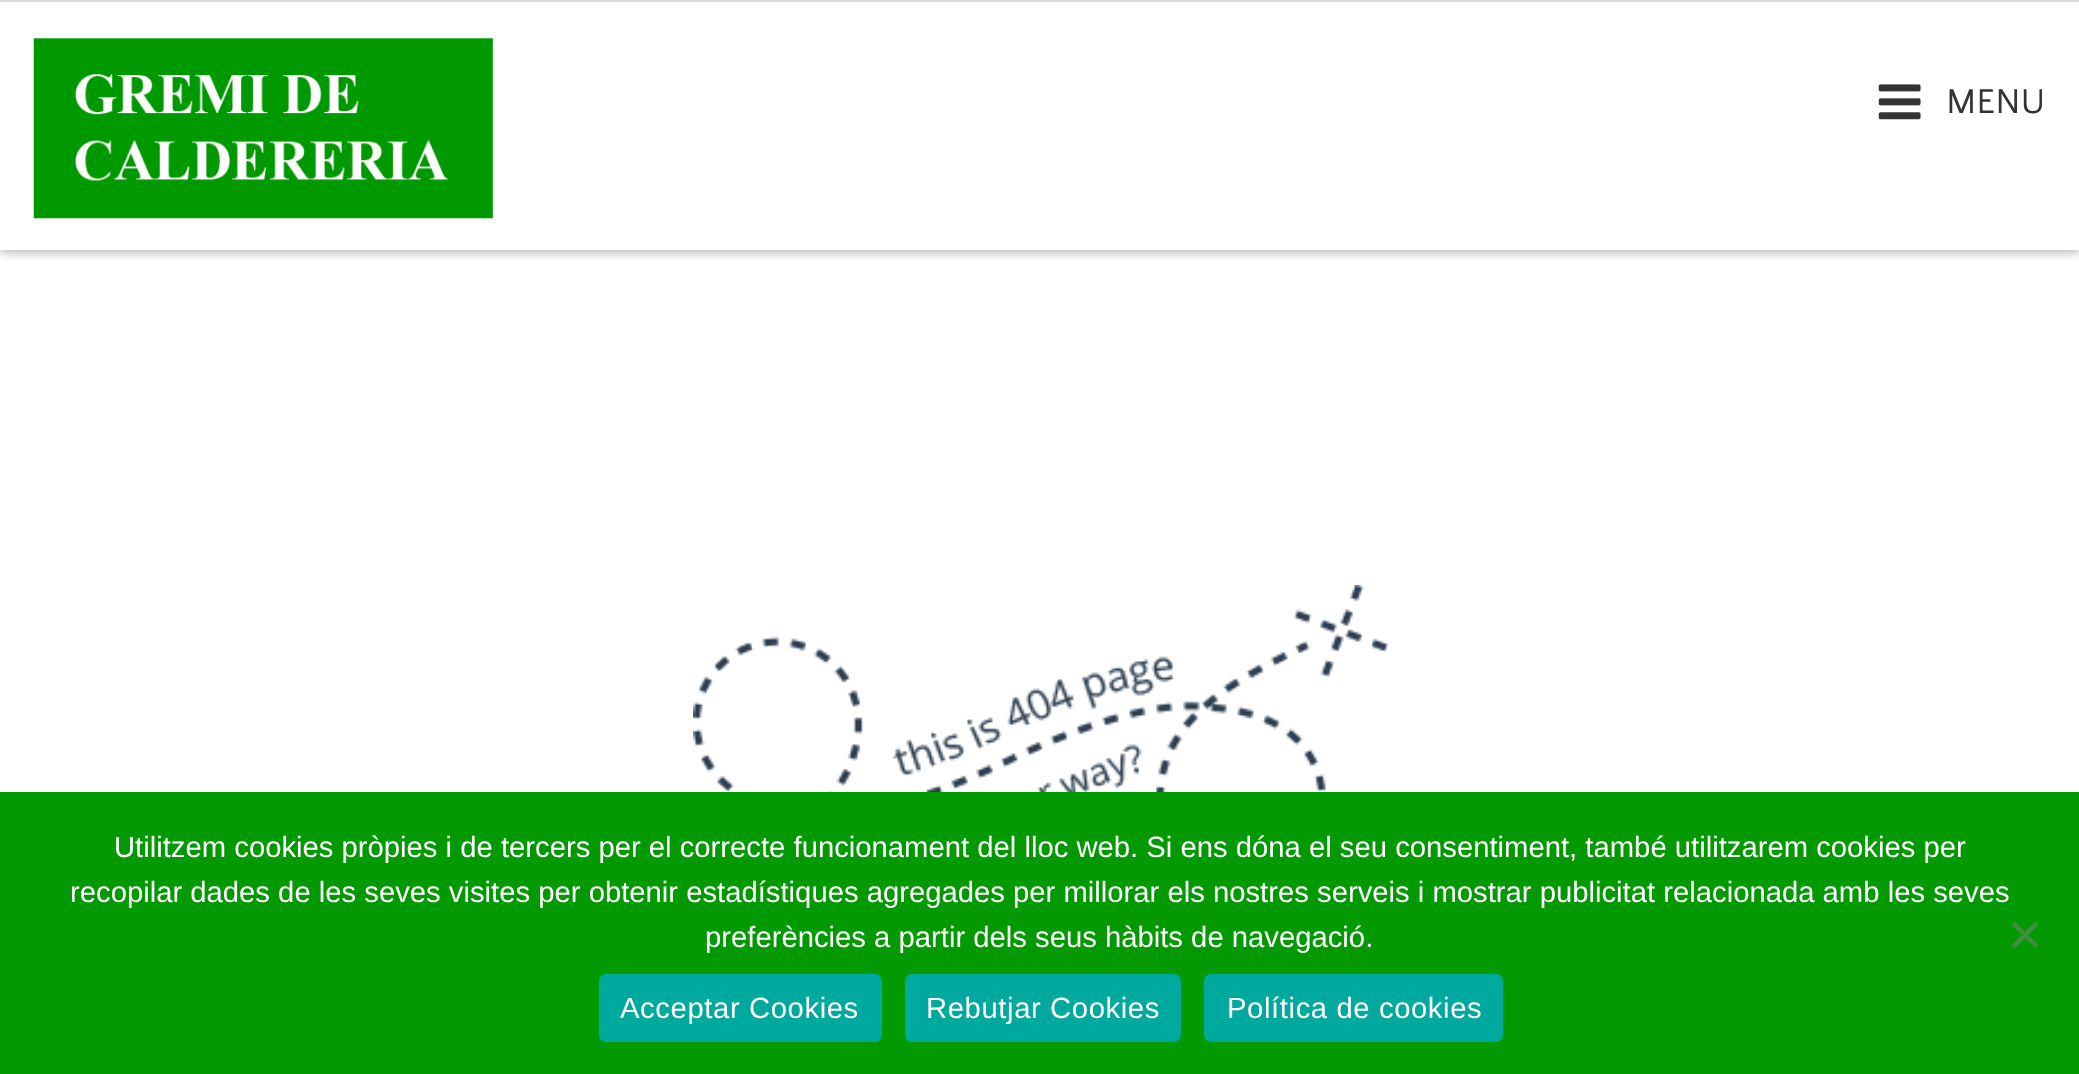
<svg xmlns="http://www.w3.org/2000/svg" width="2079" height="1074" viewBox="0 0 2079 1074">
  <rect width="100%" height="100%" fill="rgb(255,255,255)"/>
  <rect x="0" y="2" width="2079" height="250" fill="rgba(0,0,0,0.32)" filter="blur(5.5px)"/>
  <rect x="0" y="2" width="2079" height="248" fill="rgb(255,255,255)"/>
  <rect x="0" y="0" width="2079" height="2" fill="rgb(219,219,219)"/>
  <image x="33" y="38" width="460" height="181" href="pic1.png"/>
  <image x="1878" y="84" width="43" height="36" href="pic2.png"/>
  <text x="1946" y="113" font-family="Quattrocento Sans" font-size="36" fill="rgb(51,51,51)">MENU</text>
  <image x="693" y="585" width="696" height="207" href="pic3.png"/>
  <rect x="0" y="792" width="2079" height="282" fill="rgb(3,153,2)"/>
  <g font-family="Liberation Sans" font-size="29.25" fill="rgb(255,255,255)">
    <text x="114" y="857">Utilitzem cookies pròpies i de tercers per el correcte funcionament del lloc web. Si ens dóna el seu consentiment, també utilitzarem cookies per</text>
    <text x="70" y="902">recopilar dades de les seves visites per obtenir estadístiques agregades per millorar els nostres serveis i mostrar publicitat relacionada amb les seves</text>
    <text x="705" y="947">preferències a partir dels seus hàbits de navegació.</text>
  </g>
  <path d="M2035.5 921.5L2038.5 924.5L2014.5 948.5L2011.5 945Z" fill="rgb(66,141,65)"/>
  <path d="M2011.5 924.5L2014.5 921.5L2038.5 945L2035.5 948.5Z" fill="rgb(66,141,65)"/>
  <rect x="599" y="974" width="283" height="68" rx="7" fill="rgb(0,169,157)"/>
  <text x="620" y="1018" font-family="Liberation Sans" font-size="29.25" letter-spacing="0.6" fill="rgb(255,255,255)">Acceptar Cookies</text>
  <rect x="905" y="974" width="276" height="68" rx="7" fill="rgb(0,169,157)"/>
  <text x="926" y="1018" font-family="Liberation Sans" font-size="29.25" letter-spacing="0.6" fill="rgb(255,255,255)">Rebutjar Cookies</text>
  <rect x="1204" y="974" width="299" height="68" rx="7" fill="rgb(0,169,157)"/>
  <text x="1227" y="1018" font-family="Liberation Sans" font-size="29.25" letter-spacing="0.6" fill="rgb(255,255,255)">Política de cookies</text>
</svg>
